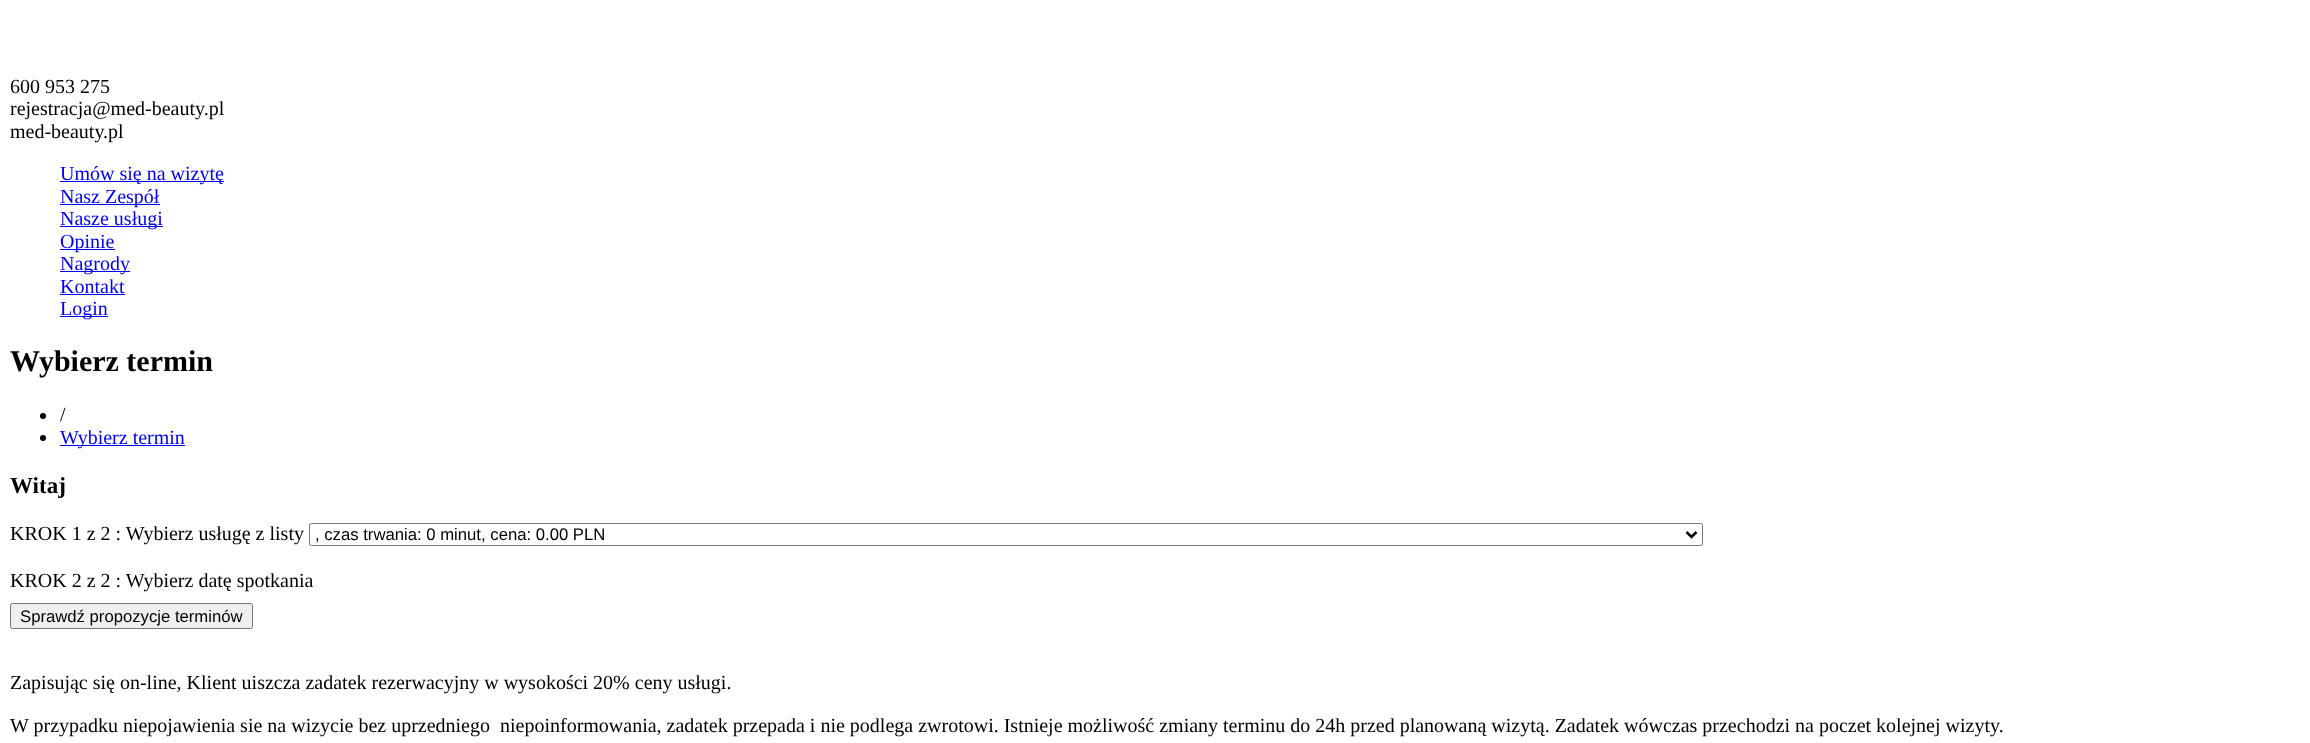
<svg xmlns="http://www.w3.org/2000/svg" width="2310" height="743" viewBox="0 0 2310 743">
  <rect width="100%" height="100%" fill="rgb(255,255,255)"/>
  <g font-family="Liberation Serif" font-size="20" fill="rgb(0,0,0)">
    <text>
      <tspan x="10" y="93">600 953 275</tspan>
      <tspan x="10" y="115">rejestracja@med-beauty.pl</tspan>
      <tspan x="10" y="138">med-beauty.pl</tspan>
    </text>
  </g>
  <rect x="60" y="181" width="164" height="1" fill="rgb(0,0,238)"/>
  <text x="60" y="180" font-family="Liberation Serif" font-size="20" fill="rgb(0,0,238)">Umów się na wizytę</text>
  <rect x="60" y="204" width="100" height="1" fill="rgb(0,0,238)"/>
  <text x="60" y="203" font-family="Liberation Serif" font-size="20" fill="rgb(0,0,238)">Nasz Zespół</text>
  <rect x="60" y="226" width="103" height="1" fill="rgb(0,0,238)"/>
  <text x="60" y="225" font-family="Liberation Serif" font-size="20" fill="rgb(0,0,238)">Nasze usługi</text>
  <rect x="60" y="249" width="55" height="1" fill="rgb(0,0,238)"/>
  <text x="60" y="248" font-family="Liberation Serif" font-size="20" fill="rgb(0,0,238)">Opinie</text>
  <rect x="60" y="271" width="70" height="1" fill="rgb(0,0,238)"/>
  <g font-family="Liberation Serif" font-size="20" fill="rgb(0,0,238)">
    <text>
      <tspan x="60" y="270">Nagrody</tspan>
      <tspan x="60" y="293">Kontakt</tspan>
    </text>
  </g>
  <rect x="60" y="294" width="65" height="1" fill="rgb(0,0,238)"/>
  <rect x="60" y="316" width="48" height="1" fill="rgb(0,0,238)"/>
  <text x="60" y="315" font-family="Liberation Serif" font-size="20" fill="rgb(0,0,238)">Login</text>
  <text x="10" y="371" font-family="Liberation Serif" font-size="30" font-weight="bold" fill="rgb(0,0,0)">Wybierz termin</text>
  <circle cx="43" cy="416" r="3" fill="rgb(0,0,0)"/>
  <text x="60" y="421" font-family="Liberation Serif" font-size="20" fill="rgb(0,0,0)">/</text>
  <circle cx="43" cy="438" r="3" fill="rgb(0,0,0)"/>
  <rect x="60" y="445" width="125" height="1" fill="rgb(0,0,238)"/>
  <text x="60" y="444" font-family="Liberation Serif" font-size="20" fill="rgb(0,0,238)">Wybierz termin</text>
  <text x="10" y="493" font-family="Liberation Serif" font-size="23" font-weight="bold" fill="rgb(0,0,0)">Witaj</text>
  <text x="10" y="540" font-family="Liberation Serif" font-size="20" fill="rgb(0,0,0)">KROK 1 z 2 : Wybierz usługę z listy</text>
  <rect x="309.5" y="523.5" width="1393" height="22" rx="2" fill="none" stroke="rgb(118,118,118)"/>
  <path d="M1686.5 532L1691.5 537L1696.5 532" fill="none" stroke="rgb(0,0,0)" stroke-width="2.5"/>
  <text x="315" y="540" font-family="Liberation Sans" font-size="16.7" fill="rgb(0,0,0)">, czas trwania: 0 minut, cena: 0.00 PLN</text>
  <text x="10" y="587" font-family="Liberation Serif" font-size="20" fill="rgb(0,0,0)">KROK 2 z 2 : Wybierz datę spotkania</text>
  <rect x="10.5" y="603.5" width="242" height="25" rx="2" fill="rgb(239,239,239)" stroke="rgb(118,118,118)"/>
  <text x="20" y="622" font-family="Liberation Sans" font-size="16.7" fill="rgb(0,0,0)">Sprawdź propozycje terminów</text>
  <g font-family="Liberation Serif" font-size="20" fill="rgb(0,0,0)">
    <text x="10" y="689">Zapisując się on-line, Klient uiszcza zadatek rezerwacyjny w wysokości 20% ceny usługi.</text>
    <text x="10" y="732" xml:space="preserve">W przypadku niepojawienia sie na wizycie bez uprzedniego  niepoinformowania, zadatek przepada i nie podlega zwrotowi. Istnieje możliwość zmiany terminu do 24h przed planowaną wizytą. Zadatek wówczas przechodzi na poczet kolejnej wizyty.</text>
  </g>
</svg>
